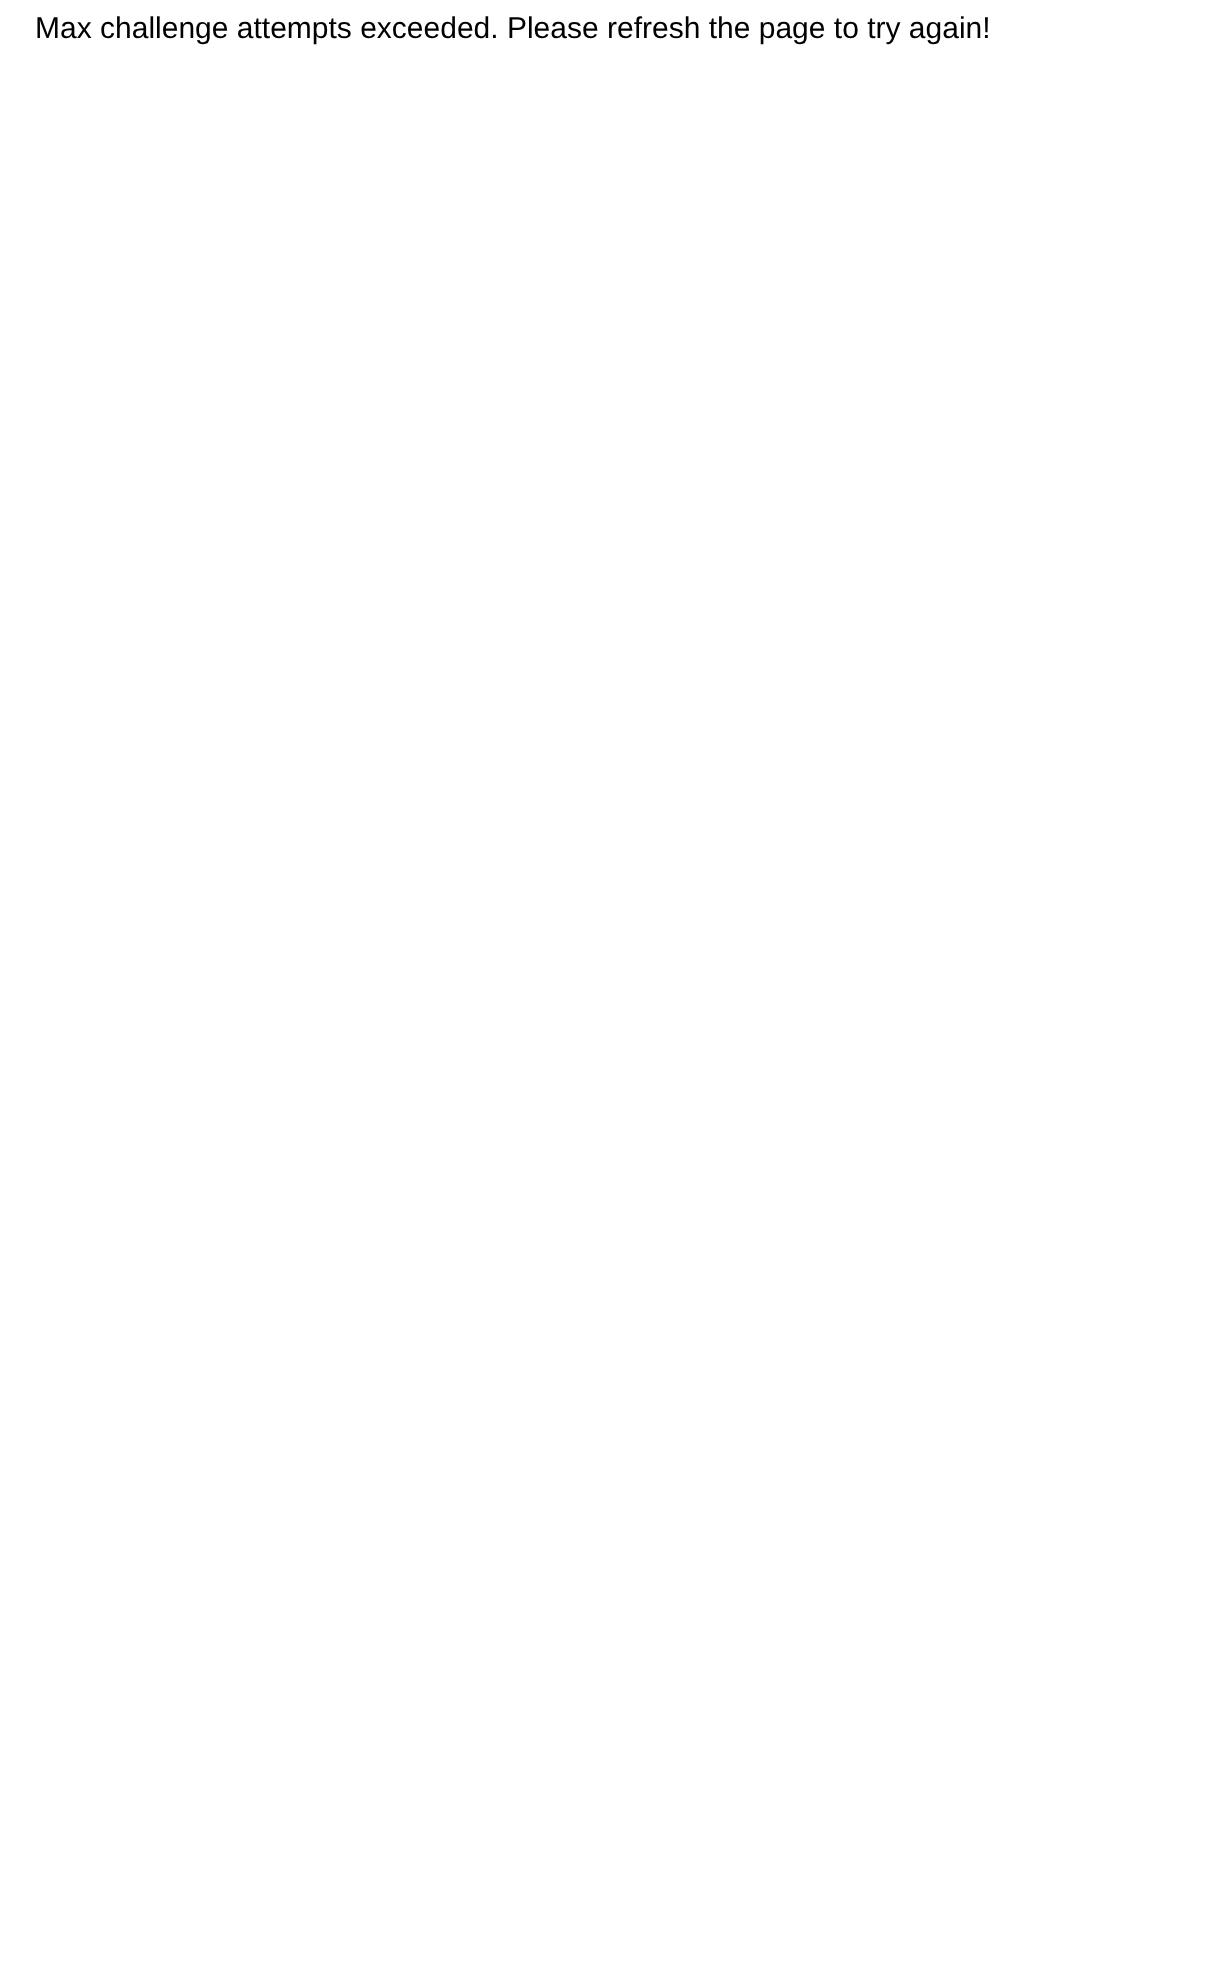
<svg xmlns="http://www.w3.org/2000/svg" width="1210" height="1978" viewBox="0 0 1210 1978">
  <rect width="100%" height="100%" fill="rgb(255,255,255)"/>
  <text x="35" y="38" font-family="Liberation Sans" font-size="30" fill="rgb(0,0,0)">Max challenge attempts exceeded. Please refresh the page to try again!</text>
</svg>
